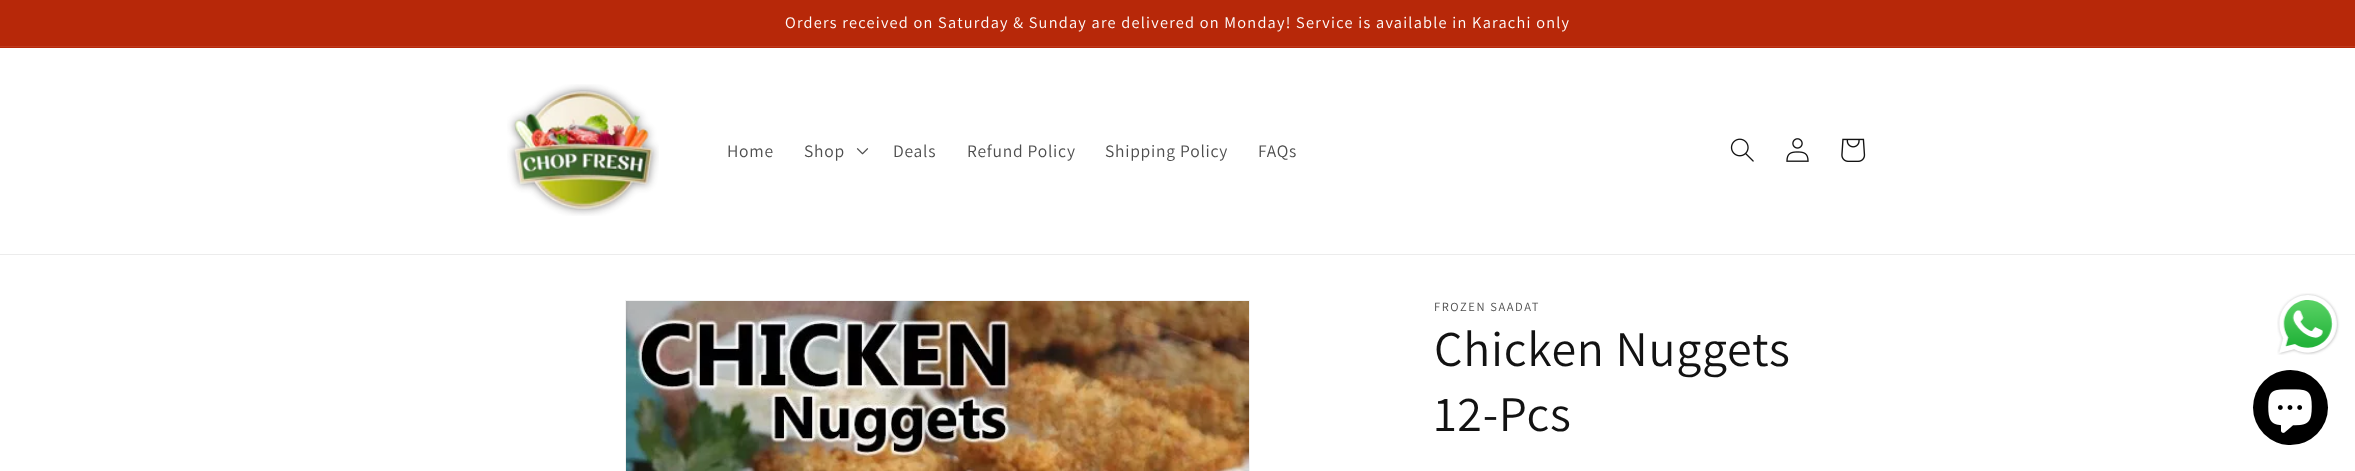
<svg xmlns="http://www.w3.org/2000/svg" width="2355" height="471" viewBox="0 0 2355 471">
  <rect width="100%" height="100%" fill="rgb(255,255,255)"/>
  <rect x="0" y="0" width="2355" height="48" fill="rgb(183,40,9)"/>
  <rect x="0" y="46" width="2355" height="1" fill="rgb(189,57,29)"/>
  <text x="785" y="28" font-family="Assistant" font-size="16.25" letter-spacing="1.25" fill="rgb(255,255,255)">Orders received on Saturday &amp; Sunday are delivered on Monday! Service is available in Karachi only</text>
  <rect x="0" y="254" width="2355" height="1" fill="rgb(236,236,236)"/>
  <image x="507" y="84" width="152" height="132" href="pic1.png"/>
  <g font-family="Assistant" font-size="17.5" letter-spacing="0.75" fill="rgb(77,77,77)">
    <text x="727" y="157">Home</text>
    <text x="804" y="157">Shop</text>
  </g>
  <image x="856" y="148" width="13" height="7" href="pic2.png"/>
  <g font-family="Assistant" font-size="17.5" letter-spacing="0.75" fill="rgb(77,77,77)">
    <text x="893" y="157">Deals</text>
    <text x="967" y="157">Refund Policy</text>
    <text x="1105" y="157">Shipping Policy</text>
    <text x="1258" y="157">FAQs</text>
  </g>
  <image x="1730" y="138" width="24" height="24" href="pic3.png"/>
  <image x="1786" y="138" width="23" height="24" href="pic4.png"/>
  <image x="1841" y="138" width="25" height="24" href="pic5.png"/>
  <rect x="625.5" y="300.5" width="624" height="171" fill="none" stroke="rgb(243,243,243)"/>
  <image x="626" y="301" width="623" height="170" href="pic6.png"/>
  <text x="1434" y="311" font-family="Assistant" font-size="12.5" letter-spacing="1.6" fill="rgb(77,77,77)">FROZEN SAADAT</text>
  <g font-family="Assistant" font-size="50" letter-spacing="0.75" fill="rgb(18,18,18)">
    <text>
      <tspan x="1434" y="366">Chicken Nuggets</tspan>
      <tspan x="1434" y="431">12-Pcs</tspan>
    </text>
  </g>
  <image x="2277" y="293" width="63" height="62" href="pic7.png"/>
  <circle cx="2290.5" cy="407.5" r="37.5" fill="rgb(0,0,0)"/>
  <image x="2268" y="389" width="44" height="44" href="pic8.png"/>
</svg>
